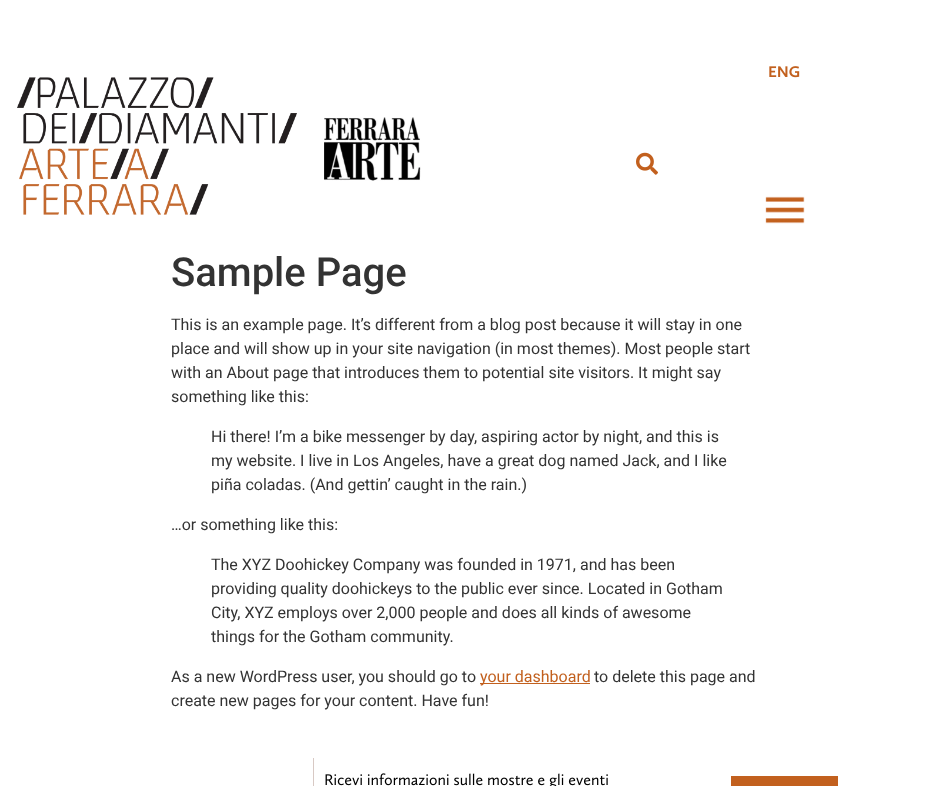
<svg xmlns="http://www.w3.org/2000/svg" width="941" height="786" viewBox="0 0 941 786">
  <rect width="100%" height="100%" fill="rgb(255,255,255)"/>
  <image x="17" y="77" width="280" height="138" href="pic1.png"/>
  <image x="324" y="117" width="97" height="64" href="pic2.png"/>
  <image x="769" y="66" width="31" height="12" href="pic3.png"/>
  <image x="636" y="152" width="22" height="23" href="pic4.png"/>
  <image x="765" y="196" width="40" height="28" href="pic5.png"/>
  <text x="171" y="286" font-family="Roboto" font-size="40" font-weight="500" fill="rgb(51,51,51)">Sample Page</text>
  <g font-family="Roboto" font-size="16" fill="rgb(51,51,51)">
    <text>
      <tspan x="171" y="330">This is an example page. It’s different from a blog post because it will stay in one</tspan>
      <tspan x="171" y="354">place and will show up in your site navigation (in most themes). Most people start</tspan>
      <tspan x="171" y="378">with an About page that introduces them to potential site visitors. It might say</tspan>
      <tspan x="171" y="402">something like this:</tspan>
    </text>
    <text>
      <tspan x="211" y="442">Hi there! I’m a bike messenger by day, aspiring actor by night, and this is</tspan>
      <tspan x="211" y="466">my website. I live in Los Angeles, have a great dog named Jack, and I like</tspan>
      <tspan x="211" y="490">piña coladas. (And gettin’ caught in the rain.)</tspan>
    </text>
    <text x="171" y="530">…or something like this:</text>
    <text>
      <tspan x="211" y="570">The XYZ Doohickey Company was founded in 1971, and has been</tspan>
      <tspan x="211" y="594">providing quality doohickeys to the public ever since. Located in Gotham</tspan>
      <tspan x="211" y="618">City, XYZ employs over 2,000 people and does all kinds of awesome</tspan>
      <tspan x="211" y="642">things for the Gotham community.</tspan>
    </text>
    <text x="171" y="682">As a new WordPress user, you should go to</text>
  </g>
  <rect x="480" y="683" width="110" height="1" fill="rgb(194,96,30)"/>
  <text x="480" y="682" font-family="Roboto" font-size="16" fill="rgb(194,96,30)">your dashboard</text>
  <g font-family="Roboto" font-size="16" fill="rgb(51,51,51)">
    <text x="594" y="682">to delete this page and</text>
    <text x="171" y="706">create new pages for your content. Have fun!</text>
  </g>
  <rect x="313" y="758" width="1" height="28" fill="rgb(216,201,196)"/>
  <image x="325" y="773" width="283" height="13" href="pic6.png"/>
  <rect x="731" y="776" width="107" height="10" fill="rgb(194,96,30)"/>
</svg>
